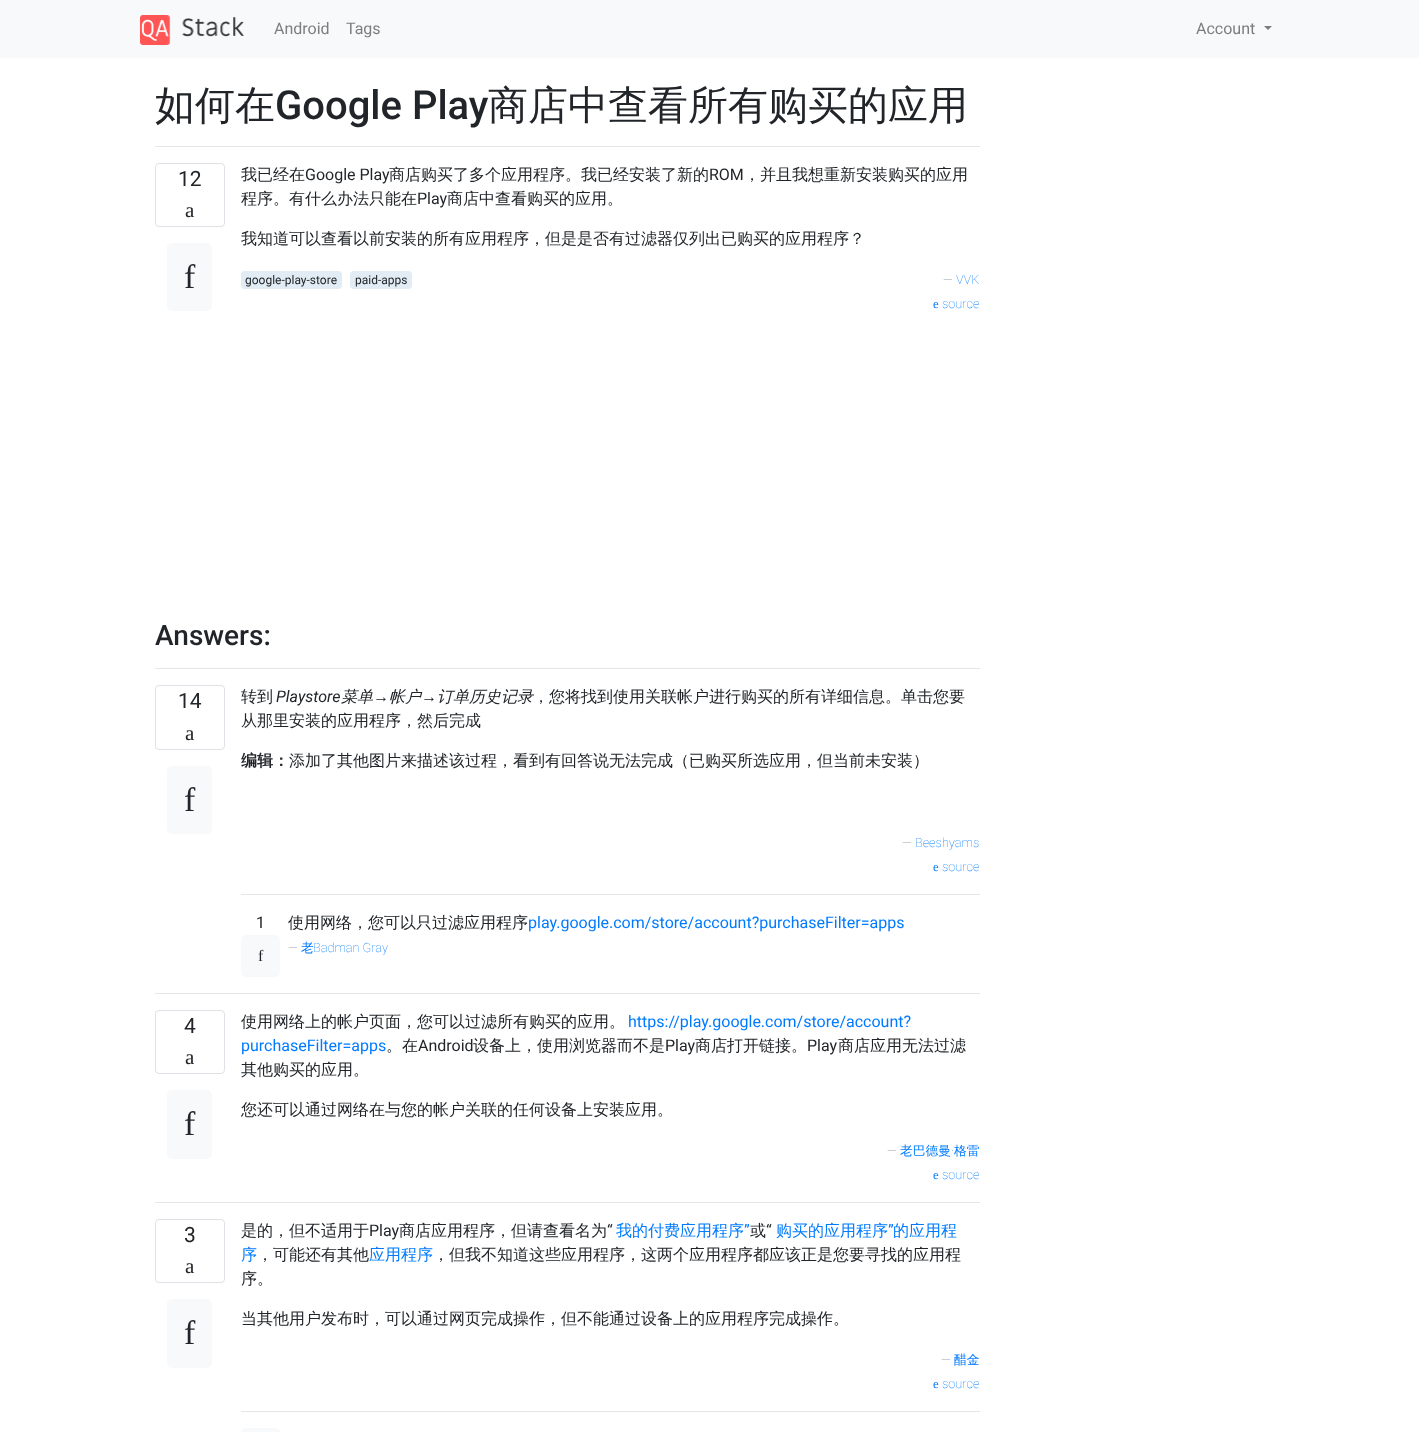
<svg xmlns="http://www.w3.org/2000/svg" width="1419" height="1432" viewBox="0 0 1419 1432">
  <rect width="100%" height="100%" fill="rgb(255,255,255)"/>
  <rect x="0" y="0" width="1419" height="58" fill="rgb(248,249,250)"/>
  <image x="140" y="15" width="104" height="30" href="pic1.png"/>
  <g font-family="Roboto" font-size="16" fill="rgb(124,125,125)">
    <text x="274" y="34">Android</text>
    <text x="346" y="34">Tags</text>
    <text x="1196" y="34">Account</text>
  </g>
  <path d="M1264 26H1272L1268 30Z" fill="rgb(124,125,125)"/>
  <text x="155" y="119" font-family="WenQuanYi Zen Hei" font-size="40" font-weight="500" fill="rgb(33,37,41)">如何在</text>
  <text x="275" y="119" font-family="Roboto" font-size="40" font-weight="500" fill="rgb(33,37,41)">Google Play</text>
  <text x="488" y="119" font-family="WenQuanYi Zen Hei" font-size="40" font-weight="500" fill="rgb(33,37,41)">商店中查看所有购买的应用</text>
  <rect x="155" y="146" width="825" height="1" fill="rgb(230,230,230)"/>
  <rect x="155.5" y="163.5" width="69" height="63" rx="3.5" fill="none" stroke="rgb(222,226,230)"/>
  <text x="178" y="186" font-family="Roboto" font-size="21" fill="rgb(33,37,41)">12</text>
  <text x="185" y="217" font-family="Liberation Serif" font-size="21" fill="rgb(33,37,41)">a</text>
  <rect x="167" y="243" width="45" height="68" rx="5" fill="rgb(248,249,250)"/>
  <text x="184" y="288" font-family="Liberation Serif" font-size="34" fill="rgb(33,37,41)">f</text>
  <text x="241" y="180" font-family="WenQuanYi Zen Hei" font-size="16" font-weight="500" fill="rgb(33,37,41)">我已经在</text>
  <text x="305" y="180" font-family="Roboto" font-size="16" fill="rgb(33,37,41)">Google Play</text>
  <text x="389" y="180" font-family="WenQuanYi Zen Hei" font-size="16" font-weight="500" fill="rgb(33,37,41)">商店购买了多个应用程序。我已经安装了新的</text>
  <text x="709" y="180" font-family="Roboto" font-size="16" fill="rgb(33,37,41)">ROM</text>
  <g font-family="WenQuanYi Zen Hei" font-size="16" font-weight="500" fill="rgb(33,37,41)">
    <text x="744" y="180">，并且我想重新安装购买的应用</text>
    <text x="241" y="204">程序。有什么办法只能在</text>
  </g>
  <text x="417" y="204" font-family="Roboto" font-size="16" fill="rgb(33,37,41)">Play</text>
  <g font-family="WenQuanYi Zen Hei" font-size="16" font-weight="500" fill="rgb(33,37,41)">
    <text x="447" y="204">商店中查看购买的应用。</text>
    <text x="241" y="244">我知道可以查看以前安装的所有应用程序，但是是否有过滤器仅列出已购买的应用程序？</text>
  </g>
  <rect x="241" y="271" width="101" height="18" rx="4" fill="rgb(225,236,244)"/>
  <text x="245" y="284" font-family="Roboto" font-size="12" fill="rgb(33,37,41)">google-play-store</text>
  <rect x="350" y="271" width="62" height="18" rx="4" fill="rgb(225,236,244)"/>
  <text x="355" y="284" font-family="Roboto" font-size="12" fill="rgb(33,37,41)">paid-apps</text>
  <text x="943" y="284" font-family="Roboto" font-size="12.75" font-weight="100" fill="rgb(108,117,125)">—</text>
  <text x="956" y="284" font-family="Roboto" font-size="12.75" font-weight="100" fill="rgb(0,123,255)">VVK</text>
  <text x="933" y="308" font-family="Liberation Serif" font-size="12.75" fill="rgb(0,123,255)">e</text>
  <text x="942" y="308" font-family="Roboto" font-size="12.75" font-weight="100" fill="rgb(0,123,255)">source</text>
  <text x="155" y="645" font-family="Roboto" font-size="28" font-weight="500" fill="rgb(33,37,41)">Answers:</text>
  <rect x="155" y="668" width="825" height="1" fill="rgb(230,230,230)"/>
  <rect x="155.5" y="685.5" width="69" height="64" rx="3.5" fill="none" stroke="rgb(222,226,230)"/>
  <text x="178" y="708" font-family="Roboto" font-size="21" fill="rgb(33,37,41)">14</text>
  <text x="185" y="740" font-family="Liberation Serif" font-size="21" fill="rgb(33,37,41)">a</text>
  <rect x="167" y="766" width="45" height="68" rx="5" fill="rgb(248,249,250)"/>
  <text x="184" y="811" font-family="Liberation Serif" font-size="34" fill="rgb(33,37,41)">f</text>
  <text x="241" y="702" font-family="WenQuanYi Zen Hei" font-size="16" font-weight="500" fill="rgb(33,37,41)">转到</text>
  <text x="276" y="702" font-family="Roboto" font-size="16" font-style="italic" fill="rgb(33,37,41)">Playstore</text>
  <text x="341" y="702" font-family="WenQuanYi Zen Hei" font-size="16" font-weight="500" font-style="italic" fill="rgb(33,37,41)">菜单</text>
  <text x="373" y="702" font-family="Liberation Sans" font-size="16" font-style="italic" fill="rgb(33,37,41)">→</text>
  <text x="389" y="702" font-family="WenQuanYi Zen Hei" font-size="16" font-weight="500" font-style="italic" fill="rgb(33,37,41)">帐户</text>
  <text x="421" y="702" font-family="Liberation Sans" font-size="16" font-style="italic" fill="rgb(33,37,41)">→</text>
  <text x="437" y="702" font-family="WenQuanYi Zen Hei" font-size="16" font-weight="500" font-style="italic" fill="rgb(33,37,41)">订单历史记录</text>
  <g font-family="WenQuanYi Zen Hei" font-size="16" font-weight="500" fill="rgb(33,37,41)">
    <text x="533" y="702">，您将找到使用关联帐户进行购买的所有详细信息。单击您要</text>
    <text x="241" y="726">从那里安装的应用程序，然后完成</text>
  </g>
  <text x="241" y="766" font-family="WenQuanYi Zen Hei" font-size="16" font-weight="bold" fill="rgb(33,37,41)">编辑：</text>
  <text x="289" y="766" font-family="WenQuanYi Zen Hei" font-size="16" font-weight="500" fill="rgb(33,37,41)">添加了其他图片来描述该过程，看到有回答说无法完成（已购买所选应用，但当前未安装）</text>
  <text x="902" y="847" font-family="Roboto" font-size="12.75" font-weight="100" fill="rgb(108,117,125)">—</text>
  <text x="915" y="847" font-family="Roboto" font-size="12.75" font-weight="100" fill="rgb(0,123,255)">Beeshyams</text>
  <text x="933" y="871" font-family="Liberation Serif" font-size="12.75" fill="rgb(0,123,255)">e</text>
  <text x="942" y="871" font-family="Roboto" font-size="12.75" font-weight="100" fill="rgb(0,123,255)">source</text>
  <rect x="241" y="894" width="739" height="1" fill="rgb(230,230,230)"/>
  <text x="256" y="928" font-family="Roboto" font-size="16" fill="rgb(33,37,41)">1</text>
  <rect x="241" y="935" width="39" height="42" rx="5" fill="rgb(248,249,250)"/>
  <text x="258" y="961" font-family="Liberation Serif" font-size="16" fill="rgb(33,37,41)">f</text>
  <text x="288" y="928" font-family="WenQuanYi Zen Hei" font-size="16" font-weight="500" fill="rgb(33,37,41)">使用网络，您可以只过滤应用程序</text>
  <text x="528" y="928" font-family="Roboto" font-size="16" fill="rgb(0,123,255)">play.google.com/store/account?purchaseFilter=apps</text>
  <text x="288" y="952" font-family="Roboto" font-size="12.75" font-weight="100" fill="rgb(108,117,125)">—</text>
  <text x="301" y="952" font-family="WenQuanYi Zen Hei" font-size="12.75" font-weight="500" fill="rgb(0,123,255)">老</text>
  <text x="313" y="952" font-family="Roboto" font-size="12.75" font-weight="100" fill="rgb(0,123,255)">Badman Gray</text>
  <rect x="155" y="993" width="825" height="1" fill="rgb(230,230,230)"/>
  <rect x="155.5" y="1010.5" width="69" height="63" rx="3.5" fill="none" stroke="rgb(222,226,230)"/>
  <text x="184" y="1033" font-family="Roboto" font-size="21" fill="rgb(33,37,41)">4</text>
  <text x="185" y="1064" font-family="Liberation Serif" font-size="21" fill="rgb(33,37,41)">a</text>
  <rect x="167" y="1090" width="45" height="69" rx="5" fill="rgb(248,249,250)"/>
  <text x="184" y="1135" font-family="Liberation Serif" font-size="34" fill="rgb(33,37,41)">f</text>
  <text x="241" y="1027" font-family="WenQuanYi Zen Hei" font-size="16" font-weight="500" fill="rgb(33,37,41)">使用网络上的帐户页面，您可以过滤所有购买的应用。</text>
  <g font-family="Roboto" font-size="16" fill="rgb(0,123,255)">
    <text x="628" y="1027">https://play.google.com/store/account?</text>
    <text x="241" y="1051">purchaseFilter=apps</text>
  </g>
  <text x="386" y="1051" font-family="WenQuanYi Zen Hei" font-size="16" font-weight="500" fill="rgb(33,37,41)">。在</text>
  <text x="418" y="1051" font-family="Roboto" font-size="16" fill="rgb(33,37,41)">Android</text>
  <text x="473" y="1051" font-family="WenQuanYi Zen Hei" font-size="16" font-weight="500" fill="rgb(33,37,41)">设备上，使用浏览器而不是</text>
  <text x="665" y="1051" font-family="Roboto" font-size="16" fill="rgb(33,37,41)">Play</text>
  <text x="695" y="1051" font-family="WenQuanYi Zen Hei" font-size="16" font-weight="500" fill="rgb(33,37,41)">商店打开链接。</text>
  <text x="807" y="1051" font-family="Roboto" font-size="16" fill="rgb(33,37,41)">Play</text>
  <g font-family="WenQuanYi Zen Hei" font-size="16" font-weight="500" fill="rgb(33,37,41)">
    <text x="838" y="1051">商店应用无法过滤</text>
    <text x="241" y="1075">其他购买的应用。</text>
    <text x="241" y="1115">您还可以通过网络在与您的帐户关联的任何设备上安装应用。</text>
  </g>
  <text x="887" y="1155" font-family="Roboto" font-size="12.75" font-weight="100" fill="rgb(108,117,125)">—</text>
  <text x="900" y="1155" font-family="WenQuanYi Zen Hei" font-size="12.75" font-weight="500" fill="rgb(0,123,255)">老巴德曼</text>
  <text x="951" y="1155" font-family="Roboto" font-size="12.75" font-weight="100" fill="rgb(0,123,255)">·</text>
  <text x="954" y="1155" font-family="WenQuanYi Zen Hei" font-size="12.75" font-weight="500" fill="rgb(0,123,255)">格雷</text>
  <text x="933" y="1179" font-family="Liberation Serif" font-size="12.75" fill="rgb(0,123,255)">e</text>
  <text x="942" y="1179" font-family="Roboto" font-size="12.75" font-weight="100" fill="rgb(0,123,255)">source</text>
  <rect x="155" y="1202" width="825" height="1" fill="rgb(230,230,230)"/>
  <rect x="155.5" y="1219.5" width="69" height="63" rx="3.5" fill="none" stroke="rgb(222,226,230)"/>
  <text x="184" y="1242" font-family="Roboto" font-size="21" fill="rgb(33,37,41)">3</text>
  <text x="185" y="1273" font-family="Liberation Serif" font-size="21" fill="rgb(33,37,41)">a</text>
  <rect x="167" y="1299" width="45" height="69" rx="5" fill="rgb(248,249,250)"/>
  <text x="184" y="1344" font-family="Liberation Serif" font-size="34" fill="rgb(33,37,41)">f</text>
  <text x="241" y="1236" font-family="WenQuanYi Zen Hei" font-size="16" font-weight="500" fill="rgb(33,37,41)">是的，但不适用于</text>
  <text x="369" y="1236" font-family="Roboto" font-size="16" fill="rgb(33,37,41)">Play</text>
  <text x="399" y="1236" font-family="WenQuanYi Zen Hei" font-size="16" font-weight="500" fill="rgb(33,37,41)">商店应用程序，但请查看名为</text>
  <text x="607" y="1236" font-family="Roboto" font-size="16" fill="rgb(33,37,41)">“</text>
  <text x="616" y="1236" font-family="WenQuanYi Zen Hei" font-size="16" font-weight="500" fill="rgb(0,123,255)">我的付费应用程序</text>
  <text x="744" y="1236" font-family="Roboto" font-size="16" fill="rgb(0,123,255)">”</text>
  <text x="750" y="1236" font-family="WenQuanYi Zen Hei" font-size="16" font-weight="500" fill="rgb(33,37,41)">或</text>
  <text x="766" y="1236" font-family="Roboto" font-size="16" fill="rgb(33,37,41)">“</text>
  <text x="776" y="1236" font-family="WenQuanYi Zen Hei" font-size="16" font-weight="500" fill="rgb(0,123,255)">购买的应用程序</text>
  <text x="888" y="1236" font-family="Roboto" font-size="16" fill="rgb(0,123,255)">”</text>
  <g font-family="WenQuanYi Zen Hei" font-size="16" font-weight="500" fill="rgb(0,123,255)">
    <text x="893" y="1236">的应用程</text>
    <text x="241" y="1260">序</text>
  </g>
  <text x="257" y="1260" font-family="WenQuanYi Zen Hei" font-size="16" font-weight="500" fill="rgb(33,37,41)">，可能还有其他</text>
  <text x="369" y="1260" font-family="WenQuanYi Zen Hei" font-size="16" font-weight="500" fill="rgb(0,123,255)">应用程序</text>
  <g font-family="WenQuanYi Zen Hei" font-size="16" font-weight="500" fill="rgb(33,37,41)">
    <text x="433" y="1260">，但我不知道这些应用程序，这两个应用程序都应该正是您要寻找的应用程</text>
    <text x="241" y="1284">序。</text>
    <text x="241" y="1324">当其他用户发布时，可以通过网页完成操作，但不能通过设备上的应用程序完成操作。</text>
  </g>
  <text x="941" y="1364" font-family="Roboto" font-size="12.75" font-weight="100" fill="rgb(108,117,125)">—</text>
  <text x="954" y="1364" font-family="WenQuanYi Zen Hei" font-size="12.75" font-weight="500" fill="rgb(0,123,255)">醋金</text>
  <text x="933" y="1388" font-family="Liberation Serif" font-size="12.75" fill="rgb(0,123,255)">e</text>
  <text x="942" y="1388" font-family="Roboto" font-size="12.75" font-weight="100" fill="rgb(0,123,255)">source</text>
  <rect x="241" y="1411" width="739" height="1" fill="rgb(230,230,230)"/>
  <rect x="241" y="1428" width="39" height="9" rx="5" fill="rgb(248,249,250)"/>
</svg>
